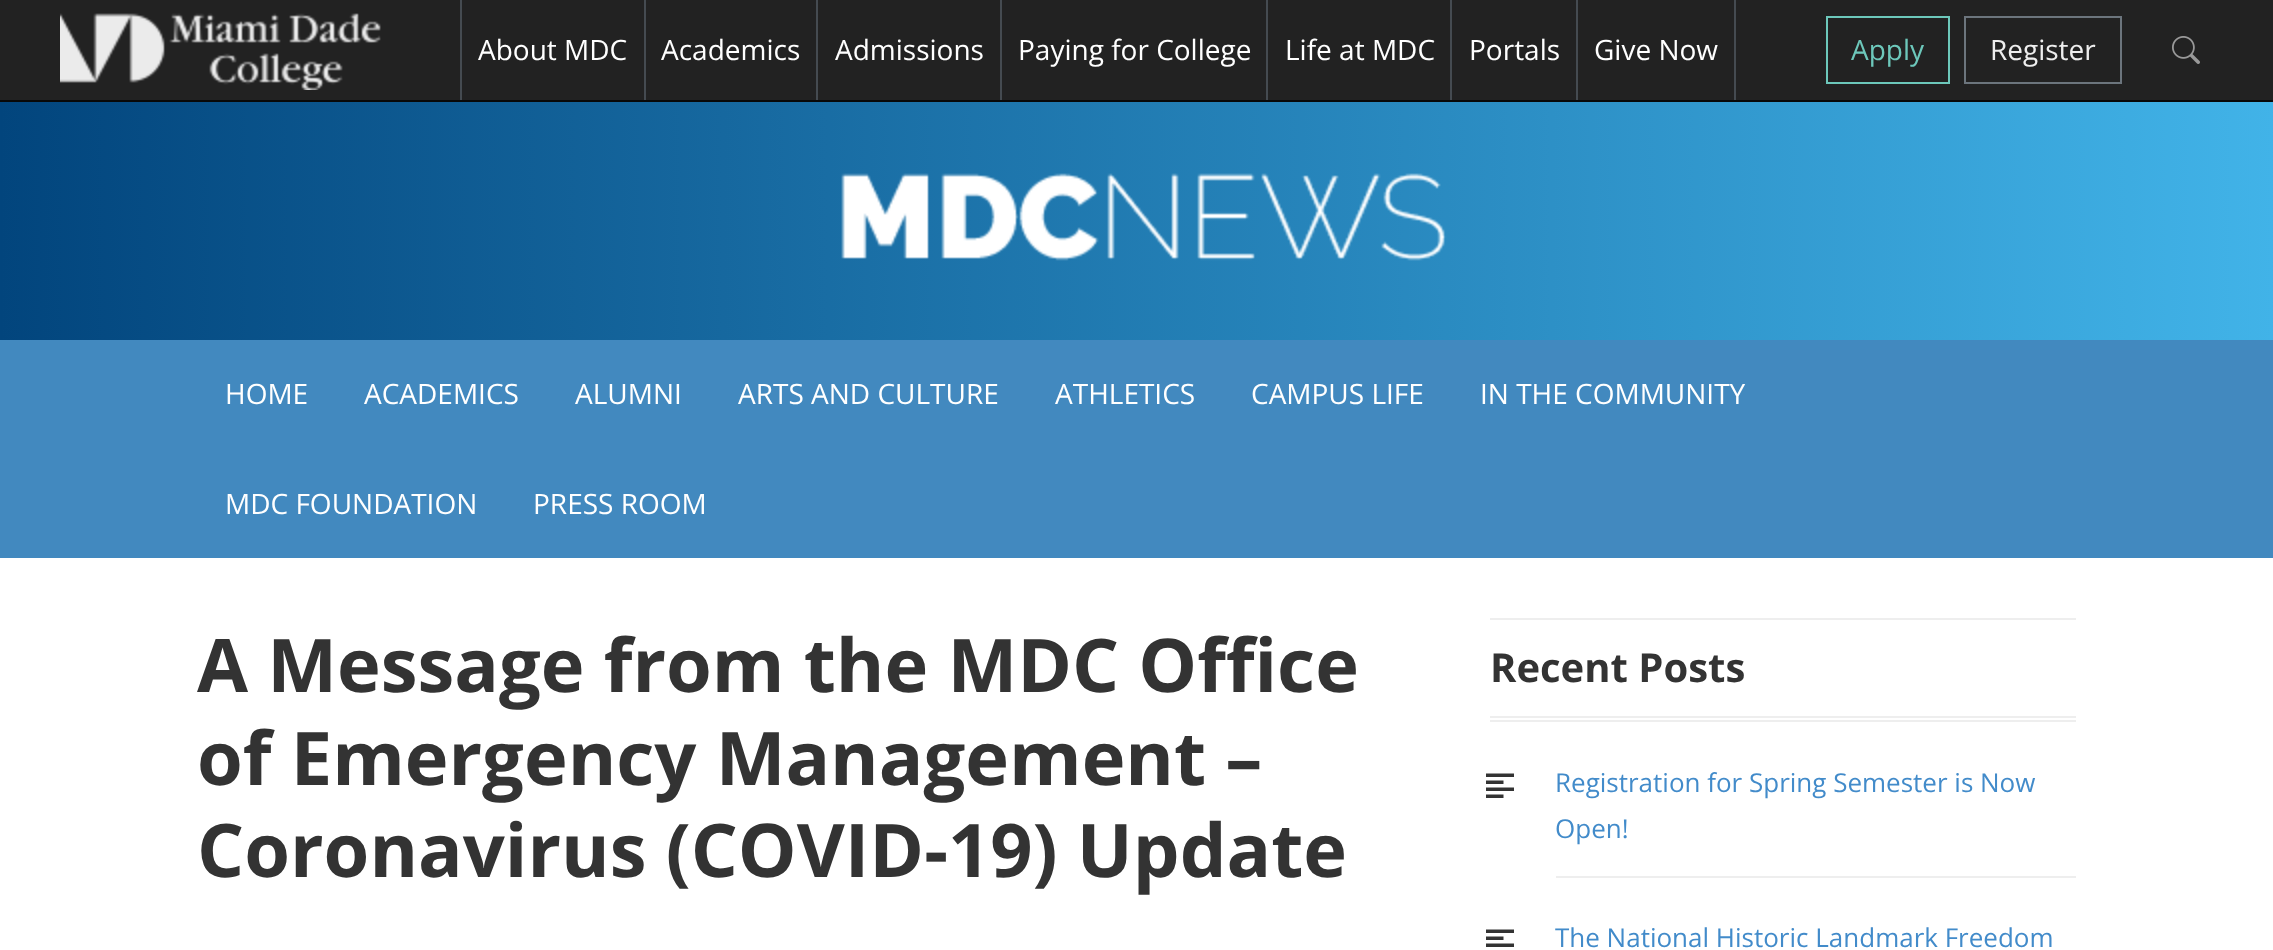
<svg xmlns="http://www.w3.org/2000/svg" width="2273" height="950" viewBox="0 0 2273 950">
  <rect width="100%" height="100%" fill="rgb(255,255,255)"/>
  <rect x="0" y="0" width="2273" height="100" fill="rgb(34,34,34)"/>
  <rect x="0" y="100" width="2273" height="2" fill="rgb(8,8,8)"/>
  <image x="60" y="13" width="321" height="77" href="pic1.png"/>
  <rect x="644" y="0" width="2" height="100" fill="rgb(69,75,81)"/>
  <rect x="460" y="0" width="2" height="100" fill="rgb(69,75,81)"/>
  <text x="478" y="60" font-family="Open Sans" font-size="28" fill="rgb(255,255,255)">About MDC</text>
  <rect x="816" y="0" width="2" height="100" fill="rgb(69,75,81)"/>
  <text x="661" y="60" font-family="Open Sans" font-size="28" fill="rgb(255,255,255)">Academics</text>
  <rect x="1000" y="0" width="2" height="100" fill="rgb(69,75,81)"/>
  <text x="835" y="60" font-family="Open Sans" font-size="28" fill="rgb(255,255,255)">Admissions</text>
  <rect x="1266" y="0" width="2" height="100" fill="rgb(69,75,81)"/>
  <text x="1018" y="60" font-family="Open Sans" font-size="28" fill="rgb(255,255,255)">Paying for College</text>
  <rect x="1450" y="0" width="2" height="100" fill="rgb(69,75,81)"/>
  <text x="1285" y="60" font-family="Open Sans" font-size="28" fill="rgb(255,255,255)">Life at MDC</text>
  <rect x="1576" y="0" width="2" height="100" fill="rgb(69,75,81)"/>
  <text x="1469" y="60" font-family="Open Sans" font-size="28" fill="rgb(255,255,255)">Portals</text>
  <rect x="1734" y="0" width="2" height="100" fill="rgb(69,75,81)"/>
  <text x="1594" y="60" font-family="Open Sans" font-size="28" fill="rgb(255,255,255)">Give Now</text>
  <rect x="1827" y="17" width="122" height="66" fill="none" stroke="rgb(109,200,187)" stroke-width="2"/>
  <text x="1851" y="60" font-family="Open Sans" font-size="28" fill="rgb(109,200,187)">Apply</text>
  <rect x="1965" y="17" width="156" height="66" fill="none" stroke="rgb(108,117,125)" stroke-width="2"/>
  <text x="1990" y="60" font-family="Open Sans" font-size="28" fill="rgb(238,238,238)">Register</text>
  <image x="2172" y="36" width="28" height="28" href="pic2.png"/>
  <image x="0" y="102" width="2273" height="238" href="pic3.png"/>
  <rect x="0" y="340" width="2273" height="218" fill="rgb(66,137,191)"/>
  <g font-family="Open Sans" font-size="28" fill="rgb(255,255,255)">
    <text x="225" y="404">HOME</text>
    <text x="364" y="404">ACADEMICS</text>
    <text x="575" y="404">ALUMNI</text>
    <text x="738" y="404">ARTS AND CULTURE</text>
    <text x="1055" y="404">ATHLETICS</text>
    <text x="1251" y="404">CAMPUS LIFE</text>
    <text x="1480" y="404">IN THE COMMUNITY</text>
    <text x="225" y="514">MDC FOUNDATION</text>
    <text x="533" y="514">PRESS ROOM</text>
  </g>
  <g font-family="Open Sans" font-size="74" font-weight="bold" fill="rgb(51,51,51)">
    <text>
      <tspan x="197" y="692">A Message from the MDC Office</tspan>
      <tspan x="197" y="785">of Emergency Management –</tspan>
      <tspan x="197" y="877">Coronavirus (COVID-19) Update</tspan>
    </text>
  </g>
  <rect x="1490" y="618" width="586" height="2" fill="rgb(238,238,238)"/>
  <rect x="1490" y="716" width="586" height="2" fill="rgb(238,238,238)"/>
  <rect x="1490" y="720" width="586" height="2" fill="rgb(238,238,238)"/>
  <text x="1490" y="682" font-family="Open Sans" font-size="40" font-weight="bold" fill="rgb(51,51,51)">Recent Posts</text>
  <rect x="1556" y="876" width="520" height="2" fill="rgb(238,238,238)"/>
  <image x="1486" y="773" width="28" height="25" href="pic4.png"/>
  <g font-family="Open Sans" font-size="26" fill="rgb(66,139,202)">
    <text>
      <tspan x="1555" y="792">Registration for Spring Semester is Now</tspan>
      <tspan x="1555" y="838">Open!</tspan>
    </text>
  </g>
  <image x="1486" y="929" width="28" height="18" href="pic5.png"/>
  <text x="1555" y="947" font-family="Open Sans" font-size="26" fill="rgb(66,139,202)">The National Historic Landmark Freedom</text>
</svg>
